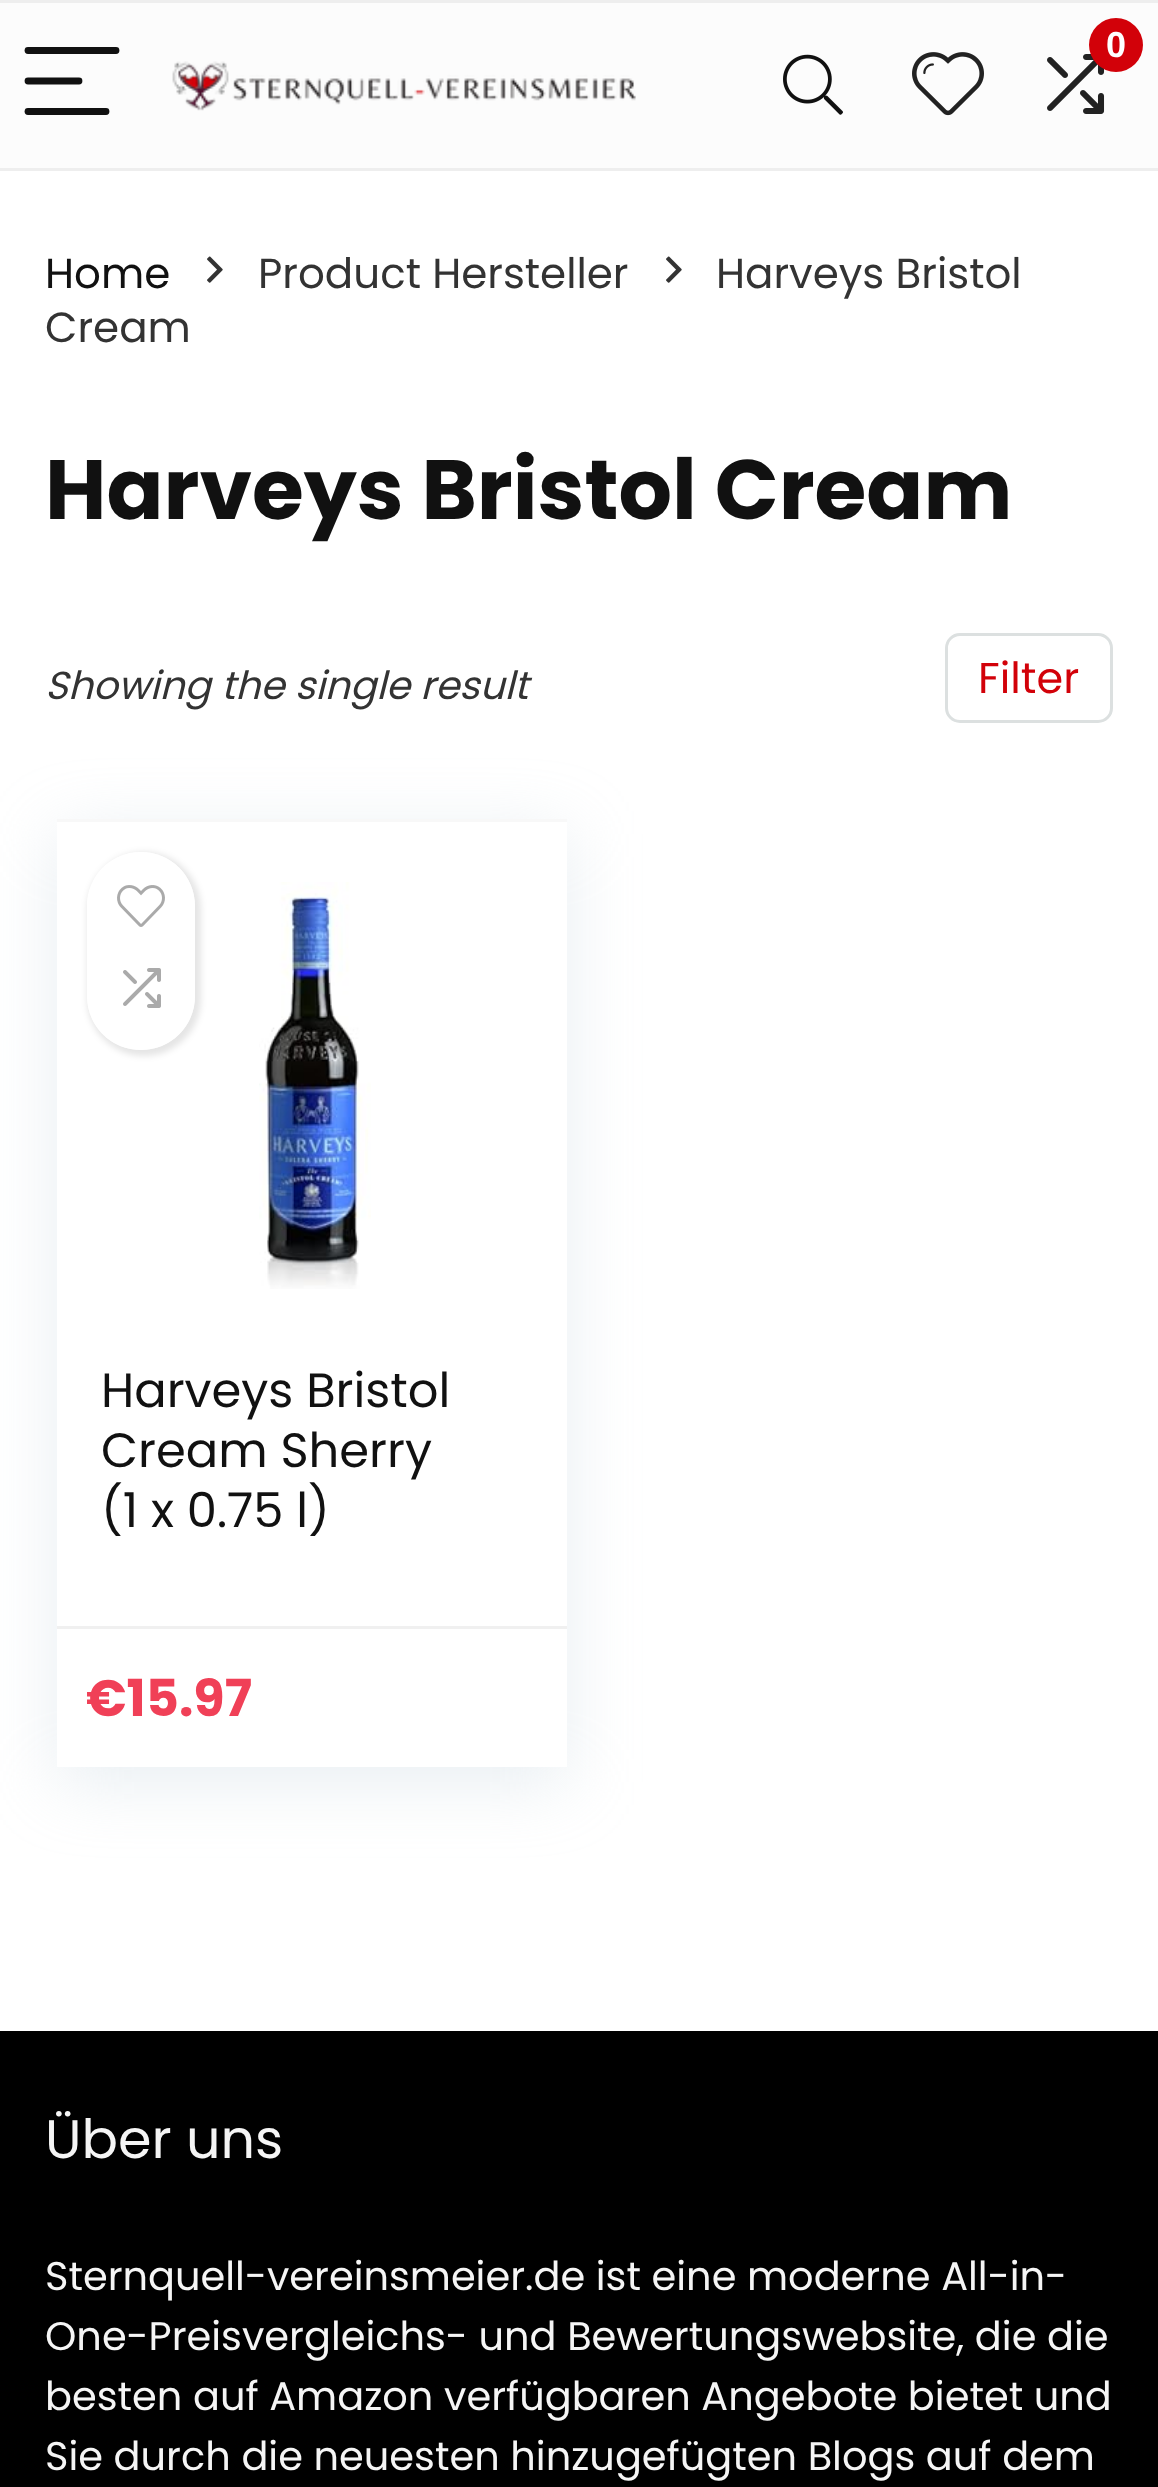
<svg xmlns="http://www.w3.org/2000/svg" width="1158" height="2487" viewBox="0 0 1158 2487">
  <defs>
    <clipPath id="clip1"><path d="M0 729H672V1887H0ZM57 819H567V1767H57Z" clip-rule="evenodd"/></clipPath>
    <clipPath id="clip2"><path d="M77 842H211V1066H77ZM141 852C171 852 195 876 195 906V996C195 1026 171 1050 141 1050C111 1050 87 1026 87 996V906C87 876 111 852 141 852Z" clip-rule="evenodd"/></clipPath>
  </defs>
  <rect width="100%" height="100%" fill="rgb(255,255,255)"/>
  <rect x="0" y="3" width="1158" height="165" fill="rgb(252,252,252)"/>
  <rect x="0" y="0" width="1158" height="3" fill="rgb(238,238,238)"/>
  <rect x="0" y="168" width="1158" height="3" fill="rgb(238,238,238)"/>
  <path d="M28 50.5H116" fill="none" stroke="rgb(17,17,17)" stroke-width="6.8" stroke-linecap="round"/>
  <path d="M28 81H79" fill="none" stroke="rgb(17,17,17)" stroke-width="6.8" stroke-linecap="round"/>
  <path d="M28 111.5H106" fill="none" stroke="rgb(17,17,17)" stroke-width="6.8" stroke-linecap="round"/>
  <image x="172" y="61" width="464" height="50" href="pic1.png"/>
  <image x="1047" y="54" width="58" height="60" href="pic2.png"/>
  <circle cx="1116" cy="45" r="27" fill="rgb(210,1,9)"/>
  <text x="1106" y="57" font-family="Liberation Sans" font-size="36" font-weight="bold" fill="rgb(255,255,255)">0</text>
  <image x="783" y="54" width="60" height="61" href="pic3.png"/>
  <image x="912" y="52" width="72" height="64" href="pic4.png"/>
  <text x="45" y="288" font-family="Poppins" font-size="42" fill="rgb(17,17,17)">Home</text>
  <image x="207" y="256" width="16" height="27" href="pic5.png"/>
  <text x="258" y="288" font-family="Poppins" font-size="42" fill="rgb(51,51,51)">Product Hersteller</text>
  <image x="666" y="256" width="16" height="27" href="pic5.png"/>
  <g font-family="Poppins" font-size="42" fill="rgb(51,51,51)">
    <text x="716" y="288">Harveys Bristol</text>
    <text x="45" y="342">Cream</text>
  </g>
  <text x="45" y="519" font-family="Poppins" font-size="84" font-weight="bold" fill="rgb(17,17,17)">Harveys Bristol Cream</text>
  <text x="45" y="699" font-family="Poppins" font-size="39" font-style="italic" fill="rgb(51,51,51)">Showing the single result</text>
  <rect x="946.5" y="634.5" width="165" height="87" rx="13.5" fill="none" stroke="rgb(220,224,224)" stroke-width="3"/>
  <text x="978" y="693" font-family="Poppins" font-size="43" fill="rgb(210,1,9)">Filter</text>
  <g clip-path="url(#clip1)">
    <rect x="57" y="834" width="510" height="948" fill="rgba(188,207,219,0.35)" filter="blur(34.5px)"/>
  </g>
  <rect x="57" y="819" width="510" height="3" fill="rgb(248,248,248)"/>
  <g clip-path="url(#clip2)">
    <rect x="87" y="852" width="114" height="204" rx="57" fill="rgba(0,0,0,0.1)" filter="blur(3px)"/>
  </g>
  <rect x="87" y="852" width="108" height="198" rx="54" fill="rgba(255,255,255,0.78)"/>
  <image x="117" y="885" width="48" height="42" href="pic6.png"/>
  <image x="123" y="968" width="38" height="40" href="pic7.png"/>
  <image x="259" y="882" width="112" height="407" href="pic8.png"/>
  <g font-family="Poppins" font-size="48" fill="rgb(17,17,17)">
    <text>
      <tspan x="101" y="1407">Harveys Bristol</tspan>
      <tspan x="101" y="1467">Cream Sherry</tspan>
      <tspan x="101" y="1527">(1 x 0.75 l)</tspan>
    </text>
  </g>
  <rect x="57" y="1626" width="510" height="3" fill="rgb(240,240,240)"/>
  <text x="86" y="1716" font-family="Poppins" font-size="51" font-weight="bold" fill="rgb(240,64,87)">€15.97</text>
  <rect x="0" y="2031" width="1158" height="456" fill="rgb(0,0,0)"/>
  <text x="45" y="2158" font-family="Poppins" font-size="54" fill="rgb(245,245,245)">Über uns</text>
  <g font-family="Poppins" font-size="39.9" fill="rgb(245,245,245)">
    <text>
      <tspan x="45" y="2290">Sternquell-vereinsmeier.de ist eine moderne All-in-</tspan>
      <tspan x="45" y="2350">One-Preisvergleichs- und Bewertungswebsite, die die</tspan>
      <tspan x="45" y="2410">besten auf Amazon verfügbaren Angebote bietet und</tspan>
      <tspan x="45" y="2470">Sie durch die neuesten hinzugefügten Blogs auf dem</tspan>
    </text>
  </g>
</svg>
